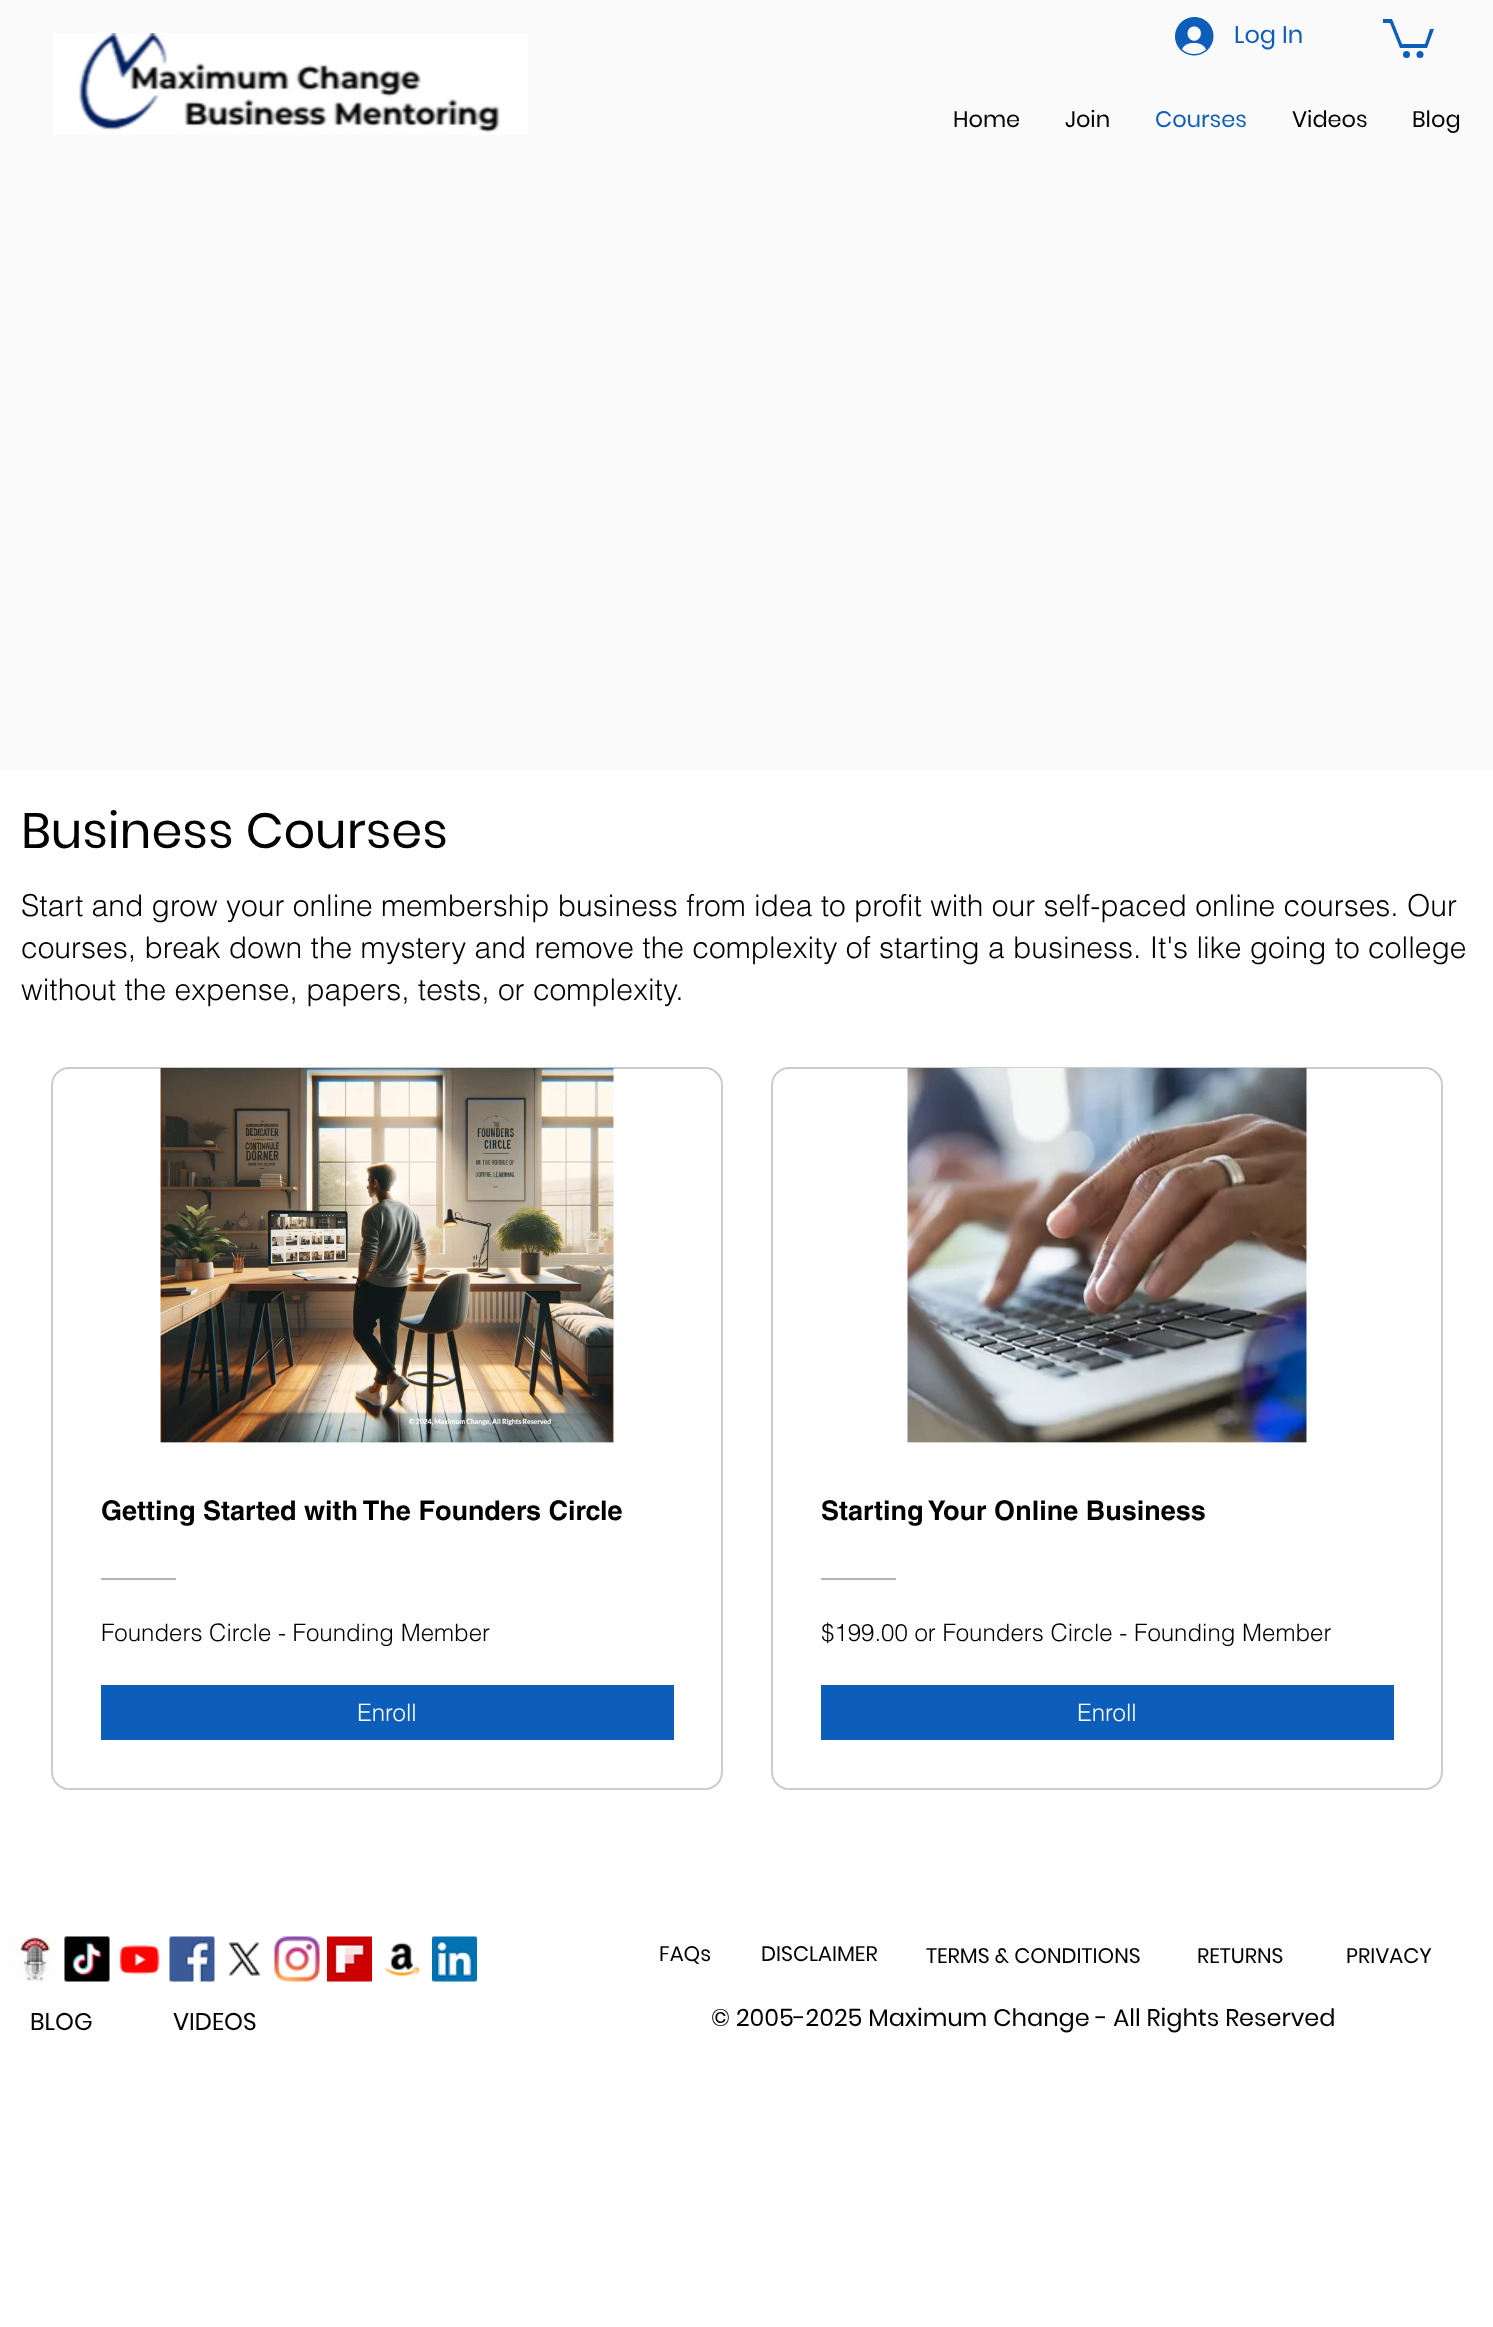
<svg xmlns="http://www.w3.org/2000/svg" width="1493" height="2327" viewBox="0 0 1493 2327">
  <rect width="100%" height="100%" fill="rgb(255,255,255)"/>
  <rect x="0" y="0" width="1493" height="770" fill="rgb(250,250,250)"/>
  <image x="53" y="33" width="475" height="102" href="pic1.png"/>
  <image x="1175" y="17" width="39" height="39" href="pic2.png"/>
  <text x="1234" y="43" font-family="Poppins" font-size="24" fill="rgb(13,94,186)">Log In</text>
  <path d="M1434 29L1427 48H1400L1390 23H1383V19H1392L1402 44H1425L1430 29" fill="rgb(13,94,186)"/>
  <circle cx="1420" cy="54.5" r="3.5" fill="rgb(13,94,186)"/>
  <circle cx="1406.5" cy="54.5" r="3.5" fill="rgb(13,94,186)"/>
  <g font-family="Poppins" font-size="22.5" fill="rgb(0,0,0)">
    <text x="953" y="127">Home</text>
    <text x="1065" y="127">Join</text>
  </g>
  <text x="1155" y="127" font-family="Poppins" font-size="22.5" fill="rgb(13,94,186)">Courses</text>
  <g font-family="Poppins" font-size="22.5" fill="rgb(0,0,0)">
    <text x="1292" y="127">Videos</text>
    <text x="1412" y="127">Blog</text>
  </g>
  <text x="21" y="848" font-family="Poppins" font-size="49.5" fill="rgb(0,0,0)">Business Courses</text>
  <g font-family="helvetica" font-size="30" font-weight="300" fill="rgb(0,0,0)">
    <text>
      <tspan x="21" y="916">Start and grow your online membership business from idea to profit with our self-paced online courses. Our</tspan>
      <tspan x="21" y="958">courses, break down the mystery and remove the complexity of starting a business. It's like going to college</tspan>
      <tspan x="21" y="1000">without the expense, papers, tests, or complexity.</tspan>
    </text>
  </g>
  <rect x="52" y="1068" width="670" height="721" rx="17" fill="none" stroke="rgb(204,204,204)" stroke-width="2"/>
  <image x="160" y="1068" width="454" height="375" href="pic3.png"/>
  <text x="101" y="1520" font-family="helvetica" font-size="27" font-weight="bold" fill="rgb(0,0,0)">Getting Started with The Founders Circle</text>
  <rect x="101" y="1578" width="75" height="2" fill="rgb(179,179,179)"/>
  <text x="101" y="1641" font-family="helvetica" font-size="24" font-weight="300" fill="rgb(0,0,0)">Founders Circle - Founding Member</text>
  <rect x="101" y="1685" width="573" height="55" fill="rgb(13,94,186)"/>
  <text x="357" y="1721" font-family="helvetica" font-size="24" font-weight="300" fill="rgb(255,255,255)">Enroll</text>
  <rect x="772" y="1068" width="670" height="721" rx="17" fill="none" stroke="rgb(204,204,204)" stroke-width="2"/>
  <image x="907" y="1068" width="400" height="375" href="pic4.png"/>
  <text x="821" y="1520" font-family="helvetica" font-size="27" font-weight="bold" fill="rgb(0,0,0)">Starting Your Online Business</text>
  <rect x="821" y="1578" width="75" height="2" fill="rgb(179,179,179)"/>
  <text x="821" y="1641" font-family="helvetica" font-size="24" font-weight="300" fill="rgb(0,0,0)">$199.00 or Founders Circle - Founding Member</text>
  <rect x="821" y="1685" width="573" height="55" fill="rgb(13,94,186)"/>
  <text x="1077" y="1721" font-family="helvetica" font-size="24" font-weight="300" fill="rgb(255,255,255)">Enroll</text>
  <image x="12" y="1936" width="44" height="45" href="pic5.png"/>
  <image x="64" y="1936" width="46" height="46" href="pic6.png"/>
  <image x="119" y="1945" width="41" height="30" href="pic7.png"/>
  <image x="169" y="1936" width="46" height="46" href="pic8.png"/>
  <image x="228" y="1942" width="33" height="34" href="pic9.png"/>
  <image x="274" y="1936" width="46" height="46" href="pic10.png"/>
  <image x="327" y="1936" width="45" height="46" href="pic11.png"/>
  <image x="384" y="1942" width="37" height="34" href="pic12.png"/>
  <image x="432" y="1936" width="45" height="46" href="pic13.png"/>
  <g font-family="Poppins" font-size="21" fill="rgb(0,0,0)">
    <text x="659" y="1961">FAQs</text>
    <text x="761" y="1961">DISCLAIMER</text>
    <text x="926" y="1963">TERMS &amp; CONDITIONS</text>
    <text x="1197" y="1963">RETURNS</text>
    <text x="1346" y="1963">PRIVACY</text>
  </g>
  <g font-family="Poppins" font-size="24" fill="rgb(0,0,0)">
    <text x="30" y="2030">BLOG</text>
    <text x="173" y="2030">VIDEOS</text>
    <text x="711" y="2026">© 2005-2025 Maximum Change - All Rights Reserved</text>
  </g>
</svg>
